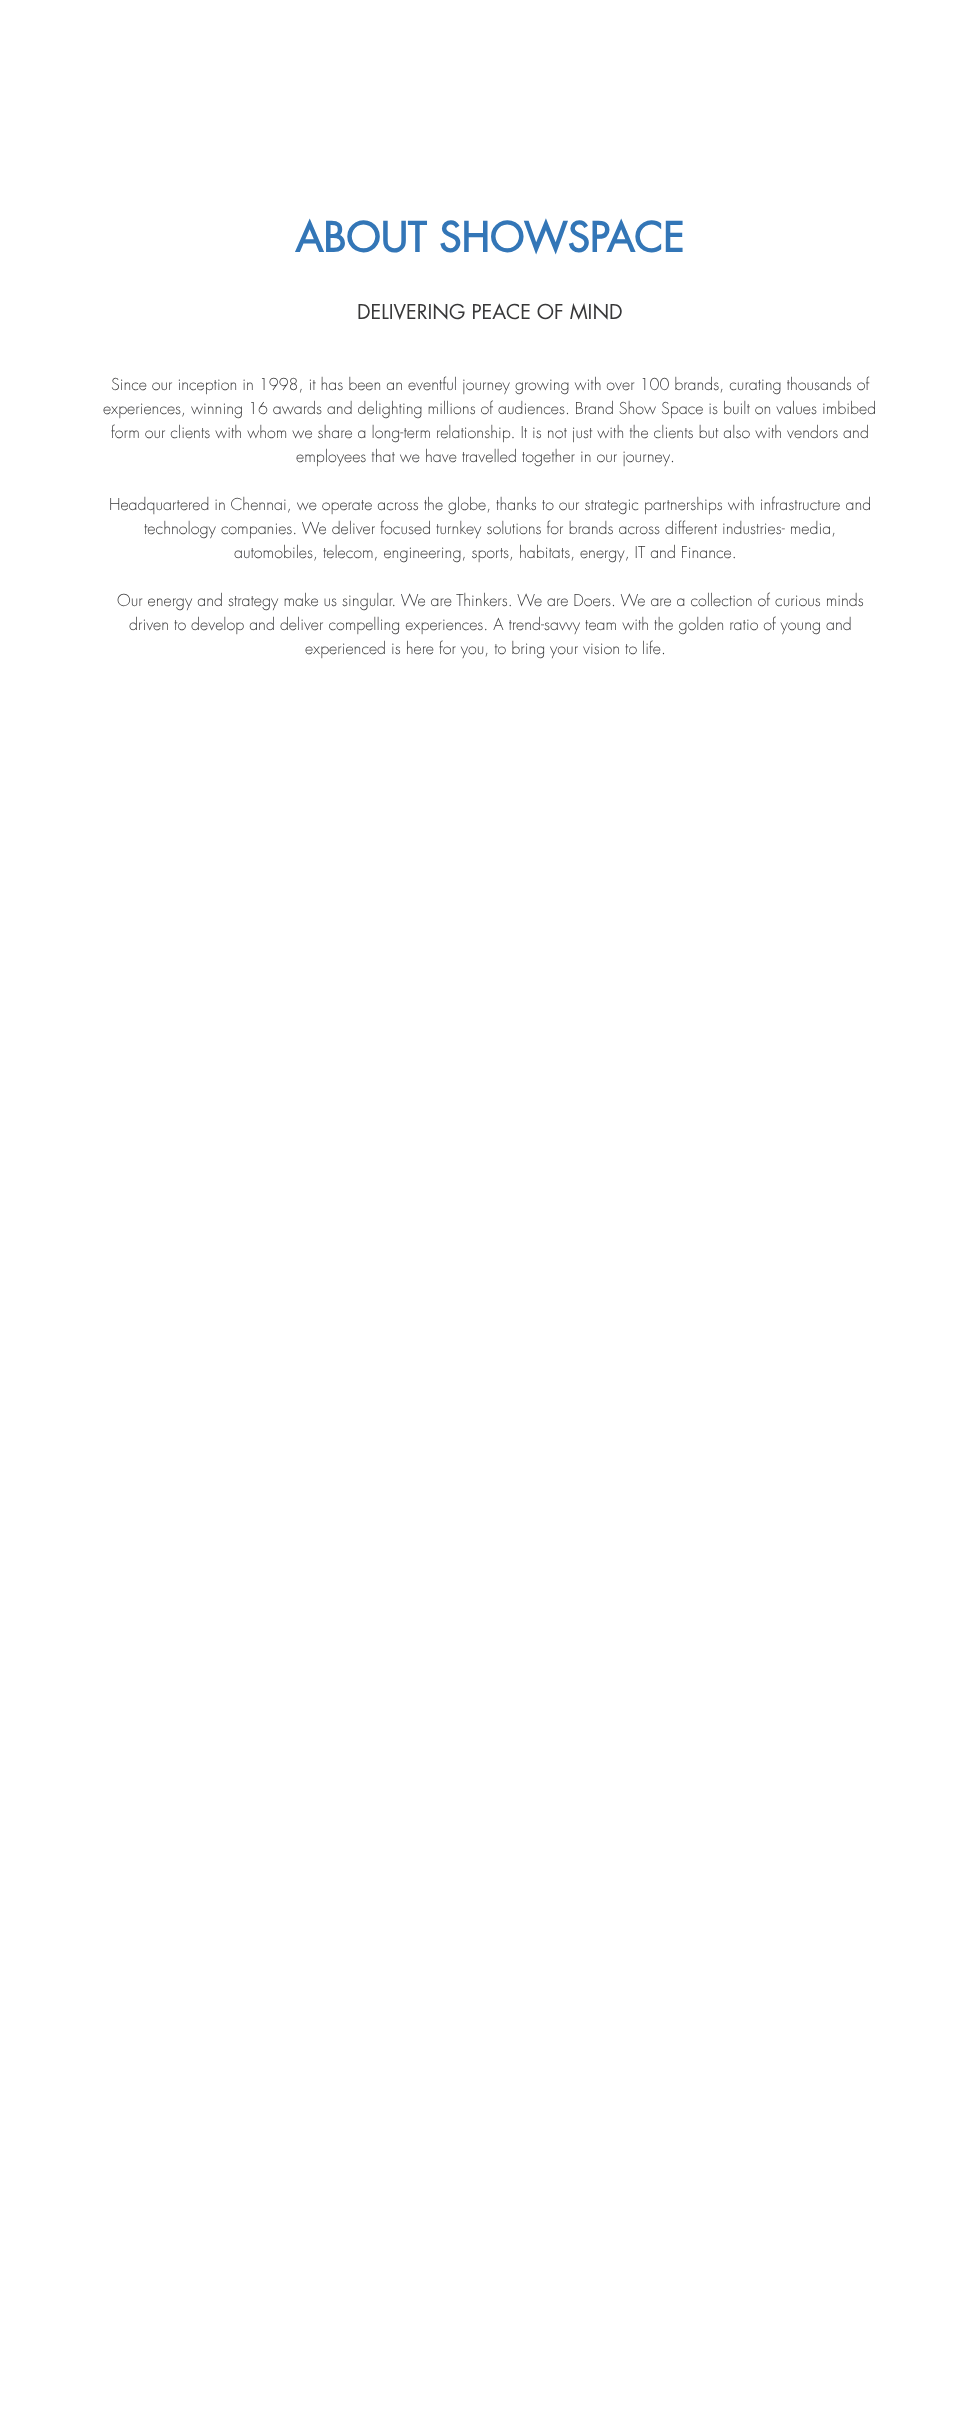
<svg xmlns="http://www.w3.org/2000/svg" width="965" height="2419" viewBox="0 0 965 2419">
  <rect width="100%" height="100%" fill="rgb(255,255,255)"/>
  <text x="295" y="252" font-family="futura" font-size="40" font-weight="bold" fill="rgb(51,118,183)">ABOUT SHOWSPACE</text>
  <text x="357" y="319" font-family="futura" font-size="20" fill="rgb(56,56,57)">DELIVERING PEACE OF MIND</text>
  <g font-family="futura" font-size="16" font-weight="300" fill="rgb(56,56,57)">
    <text x="111" y="390">Since our inception in 1998, it has been an eventful journey growing with over 100 brands, curating thousands of</text>
    <text x="103" y="414">experiences, winning 16 awards and delighting millions of audiences. Brand Show Space is built on values imbibed</text>
    <text x="111" y="438">form our clients with whom we share a long-term relationship. It is not just with the clients but also with vendors and</text>
    <text x="296" y="462">employees that we have travelled together in our journey.</text>
    <text x="109" y="510">Headquartered in Chennai, we operate across the globe, thanks to our strategic partnerships with infrastructure and</text>
    <text x="144" y="534">technology companies. We deliver focused turnkey solutions for brands across different industries- media,</text>
    <text x="234" y="558">automobiles, telecom, engineering, sports, habitats, energy, IT and Finance.</text>
    <text x="117" y="606">Our energy and strategy make us singular. We are Thinkers. We are Doers. We are a collection of curious minds</text>
    <text x="129" y="630">driven to develop and deliver compelling experiences. A trend-savvy team with the golden ratio of young and</text>
    <text x="305" y="654">experienced is here for you, to bring your vision to life.</text>
  </g>
</svg>
